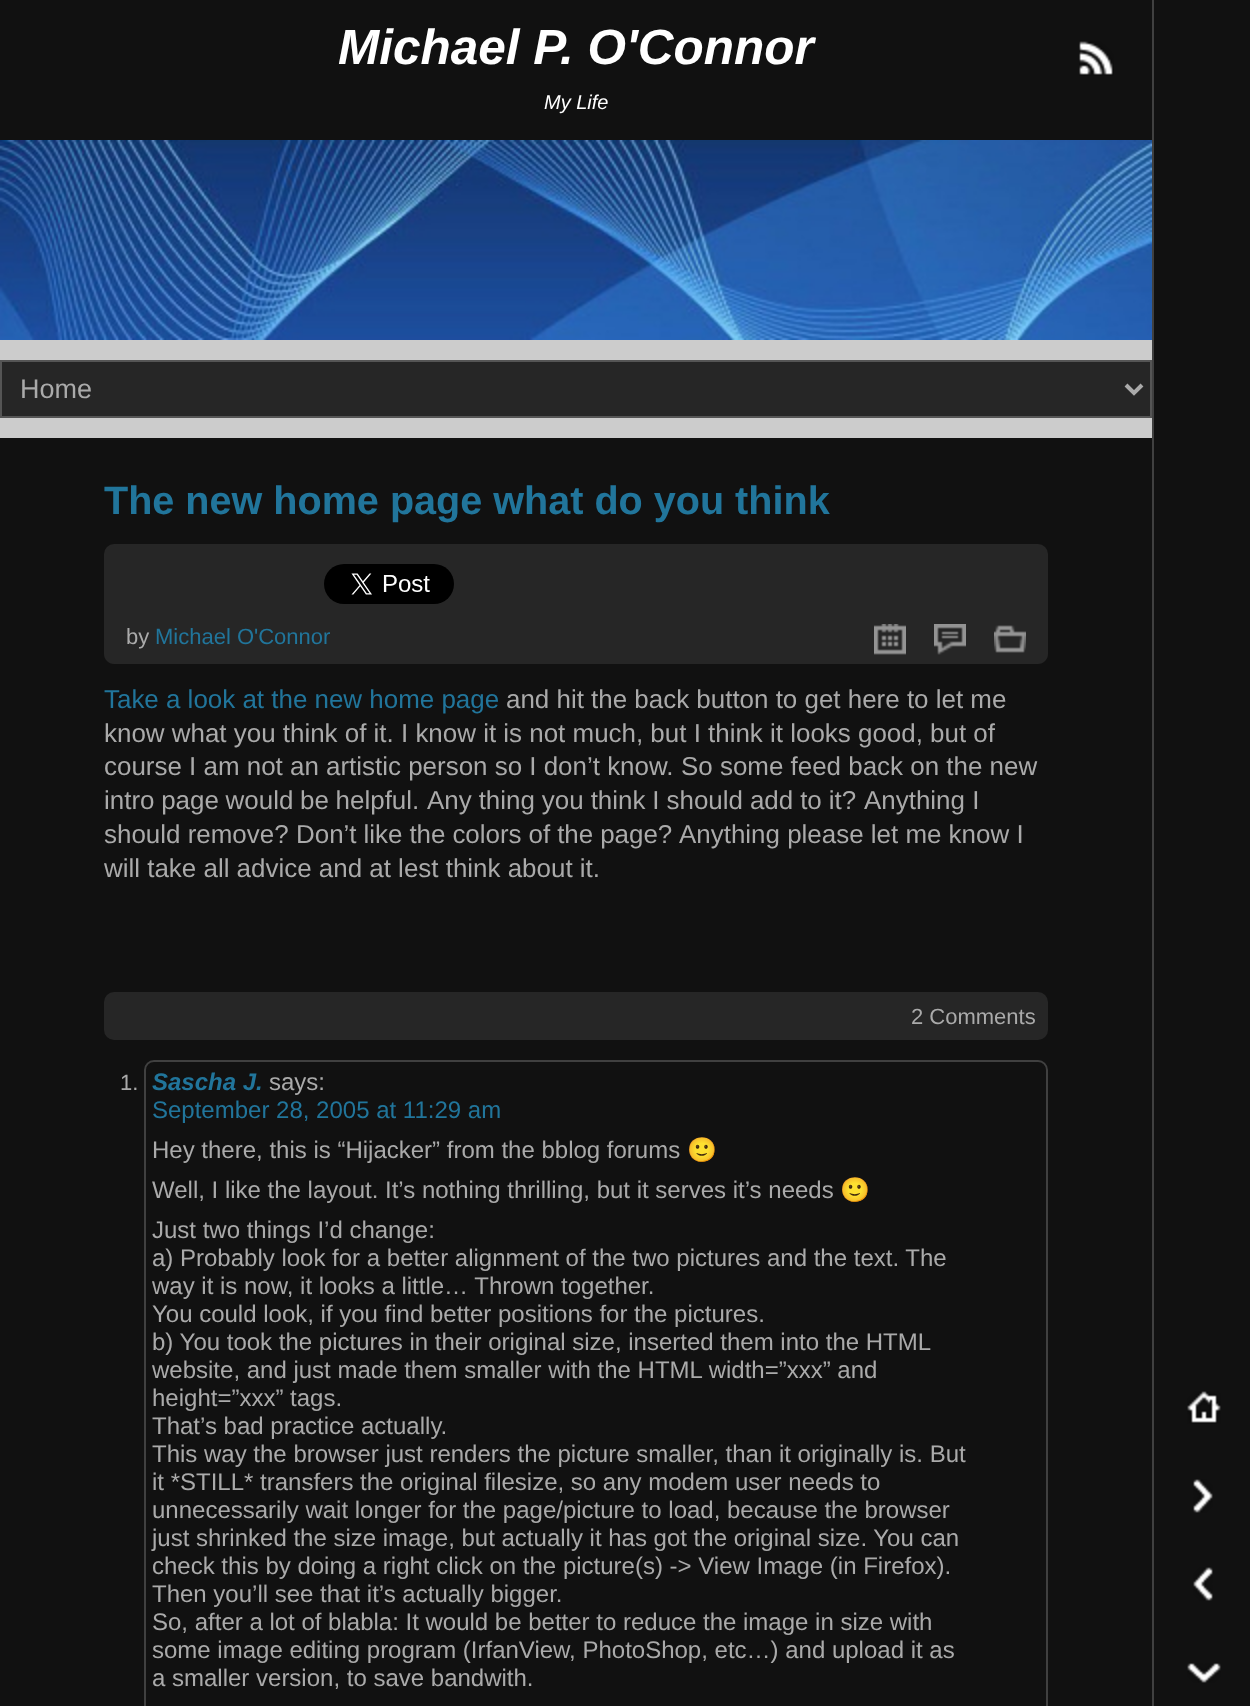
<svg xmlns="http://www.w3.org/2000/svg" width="1250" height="1706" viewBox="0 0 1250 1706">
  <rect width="100%" height="100%" fill="rgb(17,17,17)"/>
  <rect x="1152" y="0" width="2" height="1706" fill="rgb(64,64,64)"/>
  <text x="338" y="64" font-family="Liberation Sans" font-size="49.5" font-weight="bold" font-style="italic" fill="rgb(255,255,255)">Michael P. O'Connor</text>
  <image x="1079" y="41" width="35" height="35" href="pic1.png"/>
  <text x="544" y="109" font-family="Liberation Sans" font-size="20" font-style="italic" fill="rgb(255,255,255)">My Life</text>
  <image x="0" y="140" width="1152" height="200" href="pic2.png"/>
  <rect x="0" y="340" width="1152" height="20" fill="rgb(204,204,204)"/>
  <rect x="0" y="418" width="1152" height="20" fill="rgb(204,204,204)"/>
  <rect x="1" y="361" width="1150" height="56" fill="rgb(38,38,38)" stroke="rgb(85,85,85)" stroke-width="2"/>
  <path d="M1126 385L1134 393L1142 385" fill="none" stroke="rgb(170,170,170)" stroke-width="4"/>
  <text x="20" y="398" font-family="Liberation Sans" font-size="27" fill="rgb(170,170,170)">Home</text>
  <text x="104" y="514" font-family="Liberation Sans" font-size="39.6" font-weight="bold" fill="rgb(33,117,155)">The new home page what do you think</text>
  <rect x="104" y="544" width="944" height="82" rx="10" fill="rgb(38,38,38)"/>
  <image x="324" y="564" width="130" height="40" href="pic3.png"/>
  <path d="M104 616H1048V654C1048 659.5 1043.5 664 1038 664H114C108.5 664 104 659.5 104 654Z" fill="rgb(38,38,38)"/>
  <text x="126" y="644" font-family="Liberation Sans" font-size="22" fill="rgb(170,170,170)">by</text>
  <text x="155" y="644" font-family="Liberation Sans" font-size="22" fill="rgb(33,117,155)">Michael O'Connor</text>
  <image x="874" y="624" width="32" height="31" href="pic4.png"/>
  <image x="934" y="624" width="32" height="31" href="pic5.png"/>
  <image x="994" y="625" width="32" height="28" href="pic6.png"/>
  <text x="104" y="708" font-family="Liberation Sans" font-size="25.95" fill="rgb(33,117,155)">Take a look at the new home page</text>
  <g font-family="Liberation Sans" font-size="25.95" fill="rgb(170,170,170)">
    <text x="506" y="708">and hit the back button to get here to let me</text>
    <text>
      <tspan x="104" y="742">know what you think of it. I know it is not much, but I think it looks good, but of</tspan>
      <tspan x="104" y="775">course I am not an artistic person so I don’t know.</tspan>
    </text>
    <text x="681" y="775">So some feed back on the new</text>
    <text x="104" y="809" word-spacing="-0.5">intro page would be helpful.</text>
    <text x="427" y="809" word-spacing="-0.25">Any thing you think I should add to it?</text>
    <text x="864" y="809">Anything I</text>
    <text x="104" y="843">should remove?</text>
    <text x="296" y="843" word-spacing="-0.25">Don’t like the colors of the page?</text>
    <text x="679" y="843">Anything please let me know I</text>
    <text x="104" y="877">will take all advice and at lest think about it.</text>
  </g>
  <rect x="104" y="992" width="944" height="48" rx="10" fill="rgb(38,38,38)"/>
  <g font-family="Liberation Sans" font-size="22" fill="rgb(170,170,170)">
    <text x="911" y="1024">2 Comments</text>
    <text x="120" y="1090">1.</text>
  </g>
  <rect x="145" y="1061" width="902" height="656" rx="9" fill="none" stroke="rgb(64,64,64)" stroke-width="2"/>
  <text x="152" y="1090" font-family="Liberation Sans" font-size="24" font-weight="bold" font-style="italic" fill="rgb(33,117,155)">Sascha J.</text>
  <text x="269" y="1090" font-family="Liberation Sans" font-size="24" fill="rgb(170,170,170)">says:</text>
  <text x="152" y="1118" font-family="Liberation Sans" font-size="24" fill="rgb(33,117,155)">September 28, 2005 at 11:29 am</text>
  <text x="152" y="1158" font-family="Liberation Sans" font-size="24" fill="rgb(170,170,170)">Hey there, this is “Hijacker” from the bblog forums</text>
  <text x="687" y="1158" font-family="Noto Color Emoji" font-size="24" fill="rgb(170,170,170)">🙂</text>
  <text x="152" y="1198" font-family="Liberation Sans" font-size="24" fill="rgb(170,170,170)">Well, I like the layout. It’s nothing thrilling, but it serves it’s needs</text>
  <text x="840" y="1198" font-family="Noto Color Emoji" font-size="24" fill="rgb(170,170,170)">🙂</text>
  <g font-family="Liberation Sans" font-size="24" fill="rgb(170,170,170)">
    <text>
      <tspan x="152" y="1238">Just two things I’d change:</tspan>
      <tspan x="152" y="1266">a) Probably look for a better alignment of the two pictures and the text. The</tspan>
      <tspan x="152" y="1294">way it is now, it looks a little… Thrown together.</tspan>
      <tspan x="152" y="1322">You could look, if you find better positions for the pictures.</tspan>
      <tspan x="152" y="1350">b) You took the pictures in their original size, inserted them into the HTML</tspan>
      <tspan x="152" y="1378">website, and just made them smaller with the HTML width=”xxx” and</tspan>
      <tspan x="152" y="1406">height=”xxx” tags.</tspan>
      <tspan x="152" y="1434">That’s bad practice actually.</tspan>
      <tspan x="152" y="1462">This way the browser just renders the picture smaller, than it originally is. But</tspan>
      <tspan x="152" y="1490">it *STILL* transfers the original filesize, so any modem user needs to</tspan>
      <tspan x="152" y="1518">unnecessarily wait longer for the page/picture to load, because the browser</tspan>
      <tspan x="152" y="1546">just shrinked the size image, but actually it has got the original size. You can</tspan>
      <tspan x="152" y="1574">check this by doing a right click on the picture(s) -&gt; View Image (in Firefox).</tspan>
      <tspan x="152" y="1602">Then you’ll see that it’s actually bigger.</tspan>
      <tspan x="152" y="1630">So, after a lot of blabla: It would be better to reduce the image in size with</tspan>
      <tspan x="152" y="1658">some image editing program (IrfanView, PhotoShop, etc…) and upload it as</tspan>
      <tspan x="152" y="1686">a smaller version, to save bandwith.</tspan>
    </text>
  </g>
  <image x="1187" y="1391" width="34" height="33" href="pic7.png"/>
  <image x="1193" y="1479" width="20" height="34" href="pic8.png"/>
  <image x="1193" y="1567" width="20" height="34" href="pic9.png"/>
  <image x="1187" y="1663" width="34" height="20" href="pic10.png"/>
</svg>
